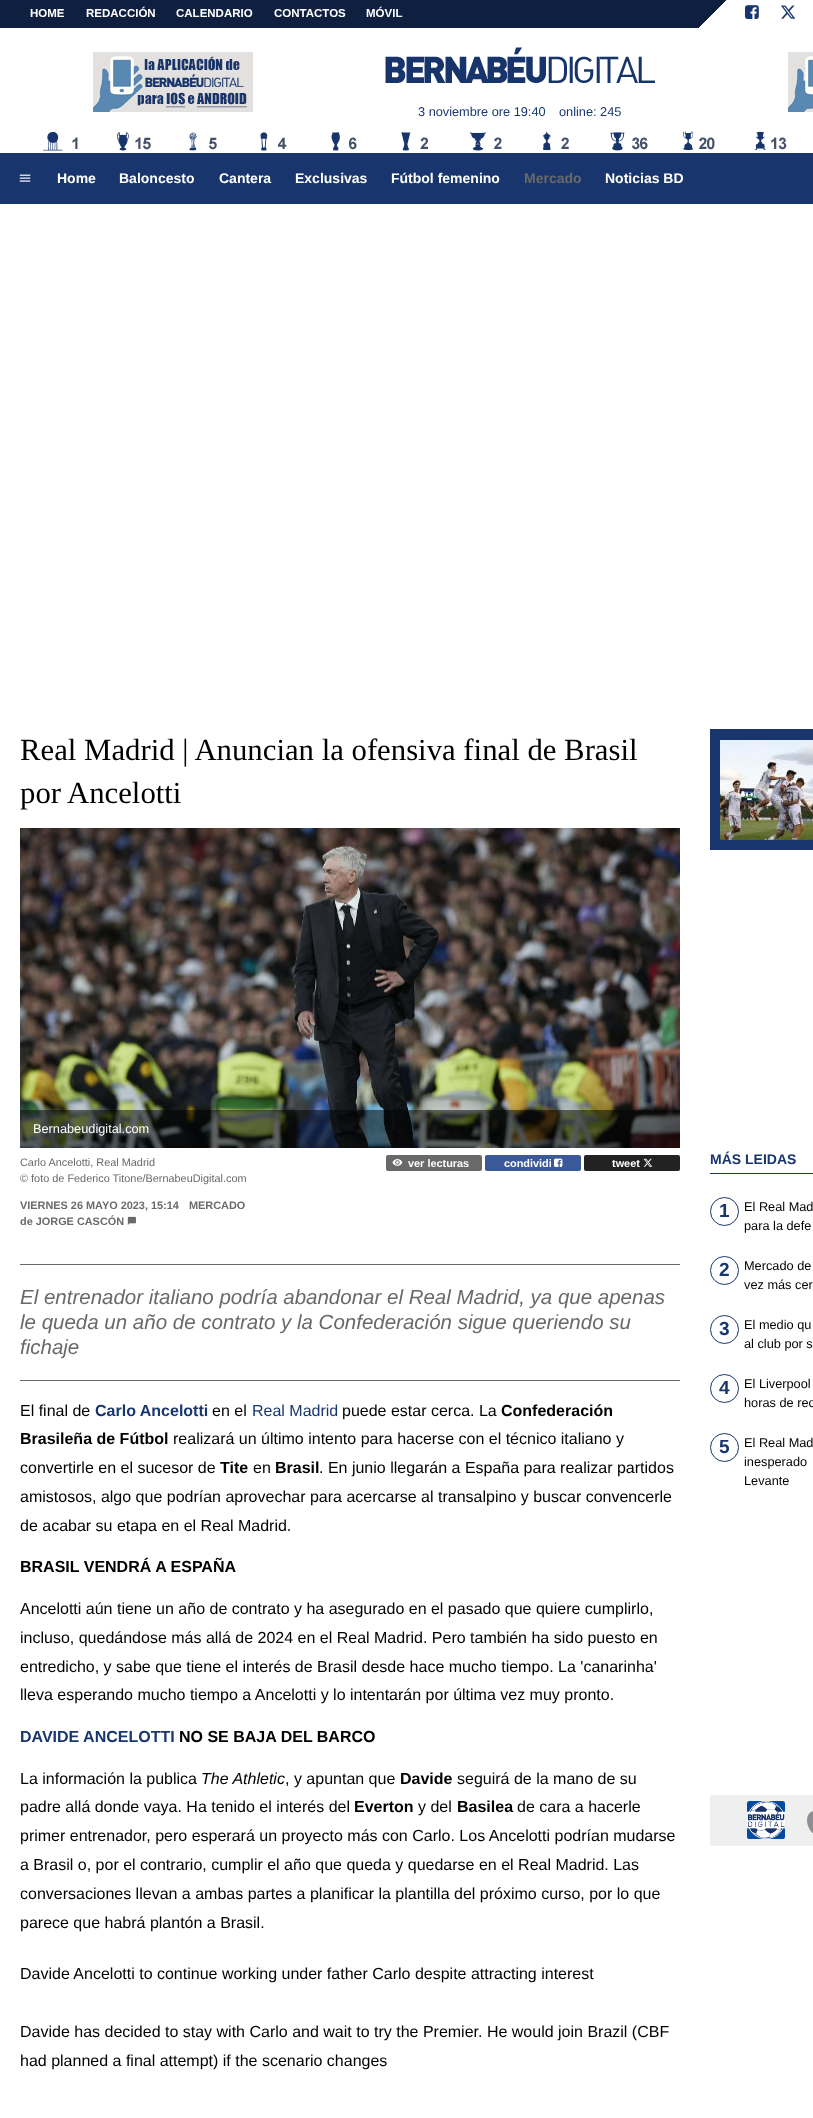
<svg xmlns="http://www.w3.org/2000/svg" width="813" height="2118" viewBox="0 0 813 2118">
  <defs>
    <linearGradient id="g1" gradientUnits="userSpaceOnUse" x1="253" y1="-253" x2="787" y2="281"><stop offset="0.68" stop-color="rgb(14,31,63)"/><stop offset="0.68" stop-color="rgb(255,255,255)"/><stop offset="1" stop-color="rgb(255,255,255)"/></linearGradient>
  </defs>
  <rect width="100%" height="100%" fill="rgb(255,255,255)"/>
  <rect x="0" y="0" width="726" height="28" fill="url(#g1)"/>
  <g font-family="Liberation Sans" font-size="11.5" font-weight="bold" fill="rgb(255,255,255)">
    <text x="30" y="17">HOME</text>
    <text x="86" y="17">REDACCIÓN</text>
    <text x="176" y="17">CALENDARIO</text>
    <text x="274" y="17">CONTACTOS</text>
    <text x="366" y="17">MÓVIL</text>
  </g>
  <image x="745" y="5" width="14" height="14" href="pic1.png"/>
  <image x="781" y="5" width="15" height="14" href="pic2.png"/>
  <image x="43" y="131" width="744" height="20" href="pic3.png"/>
  <image x="93" y="52" width="160" height="60" href="pic4.png"/>
  <image x="385" y="47" width="270" height="36" href="pic5.png"/>
  <g font-family="Liberation Sans" font-size="12.75" fill="rgb(24,54,111)">
    <text x="418" y="116">3 noviembre ore 19:40</text>
    <text x="559" y="116">online: 245</text>
  </g>
  <image x="788" y="52" width="25" height="60" href="pic6.png"/>
  <rect x="0" y="153" width="813" height="51" fill="rgb(24,54,109)"/>
  <image x="19" y="174" width="12" height="8" href="pic7.png"/>
  <g font-family="Liberation Sans" font-size="14" font-weight="bold" fill="rgb(255,255,255)">
    <text x="57" y="183">Home</text>
    <text x="119" y="183">Baloncesto</text>
    <text x="219" y="183">Cantera</text>
    <text x="295" y="183">Exclusivas</text>
    <text x="391" y="183">Fútbol femenino</text>
  </g>
  <text x="524" y="183" font-family="Liberation Sans" font-size="14" font-weight="bold" fill="rgb(105,105,105)">Mercado</text>
  <text x="605" y="183" font-family="Liberation Sans" font-size="14" font-weight="bold" fill="rgb(255,255,255)">Noticias BD</text>
  <g font-family="Liberation Serif" font-size="30.75" fill="rgb(0,0,0)">
    <text>
      <tspan x="20" y="760">Real Madrid | Anuncian la ofensiva final de Brasil</tspan>
      <tspan x="20" y="803">por Ancelotti</tspan>
    </text>
  </g>
  <image x="20" y="828" width="660" height="320" href="pic8.png"/>
  <rect x="20" y="1110" width="660" height="38" fill="rgba(0,0,0,0.5)"/>
  <text x="33" y="1133" font-family="Liberation Sans" font-size="12.75" fill="rgb(255,255,255)">Bernabeudigital.com</text>
  <g font-family="Liberation Sans" font-size="10.9" fill="rgb(105,105,105)">
    <text>
      <tspan x="20" y="1166">Carlo Ancelotti, Real Madrid</tspan>
      <tspan x="20" y="1182">© foto de Federico Titone/BernabeuDigital.com</tspan>
    </text>
  </g>
  <rect x="386" y="1155" width="96" height="16" rx="2" fill="rgb(105,105,105)"/>
  <image x="392" y="1159" width="11" height="7" href="pic9.png"/>
  <text x="408" y="1167" font-family="Liberation Sans" font-size="10.9" font-weight="bold" fill="rgb(255,255,255)">ver lecturas</text>
  <rect x="485" y="1155" width="96" height="16" rx="2" fill="rgb(59,89,152)"/>
  <text x="504" y="1167" font-family="Liberation Sans" font-size="10.9" font-weight="bold" fill="rgb(255,255,255)">condividi</text>
  <image x="554" y="1158" width="9" height="9" href="pic10.png"/>
  <rect x="584" y="1155" width="96" height="16" rx="2" fill="rgb(34,34,34)"/>
  <text x="612" y="1167" font-family="Liberation Sans" font-size="10.9" font-weight="bold" fill="rgb(255,255,255)">tweet</text>
  <image x="643" y="1158" width="10" height="9" href="pic11.png"/>
  <g font-family="Liberation Sans" font-size="10.9" font-weight="bold" fill="rgb(105,105,105)">
    <text x="20" y="1209">VIERNES 26 MAYO 2023, 15:14</text>
    <text x="189" y="1209">MERCADO</text>
    <text x="20" y="1225">de JORGE CASCÓN</text>
  </g>
  <image x="127" y="1216" width="9" height="9" href="pic12.png"/>
  <rect x="20" y="1264" width="660" height="1" fill="rgb(105,105,105)"/>
  <rect x="20" y="1380" width="660" height="1" fill="rgb(105,105,105)"/>
  <g font-family="Liberation Sans" font-size="20.5" font-style="italic" fill="rgb(105,105,105)">
    <text>
      <tspan x="20" y="1304">El entrenador italiano podría abandonar el Real Madrid, ya que apenas</tspan>
      <tspan x="20" y="1329">le queda un año de contrato y la Confederación sigue queriendo su</tspan>
      <tspan x="20" y="1354">fichaje</tspan>
    </text>
  </g>
  <text x="20" y="1416" font-family="Liberation Sans" font-size="16" fill="rgb(0,0,0)">El final de</text>
  <text x="95" y="1416" font-family="Liberation Sans" font-size="16" font-weight="bold" fill="rgb(24,54,111)">Carlo Ancelotti</text>
  <text x="212" y="1416" font-family="Liberation Sans" font-size="16" fill="rgb(0,0,0)">en el</text>
  <text x="252" y="1416" font-family="Liberation Sans" font-size="16" fill="rgb(24,54,111)">Real Madrid</text>
  <text x="342" y="1416" font-family="Liberation Sans" font-size="16" fill="rgb(0,0,0)">puede estar cerca. La</text>
  <g font-family="Liberation Sans" font-size="16" font-weight="bold" fill="rgb(0,0,0)">
    <text x="501" y="1416">Confederación</text>
    <text x="20" y="1444">Brasileña de Fútbol</text>
  </g>
  <g font-family="Liberation Sans" font-size="16" fill="rgb(0,0,0)">
    <text x="173" y="1444">realizará un último intento para hacerse con el técnico italiano y</text>
    <text x="20" y="1473">convertirle en el sucesor de</text>
  </g>
  <text x="220" y="1473" font-family="Liberation Sans" font-size="16" font-weight="bold" fill="rgb(0,0,0)">Tite</text>
  <text x="253" y="1473" font-family="Liberation Sans" font-size="16" fill="rgb(0,0,0)">en</text>
  <text x="275" y="1473" font-family="Liberation Sans" font-size="16" font-weight="bold" fill="rgb(0,0,0)">Brasil</text>
  <g font-family="Liberation Sans" font-size="16" fill="rgb(0,0,0)">
    <text x="319" y="1473">. En junio llegarán a España para realizar partidos</text>
    <text>
      <tspan x="20" y="1502">amistosos, algo que podrían aprovechar para acercarse al transalpino y buscar convencerle</tspan>
      <tspan x="20" y="1531">de acabar su etapa en el Real Madrid.</tspan>
    </text>
  </g>
  <text x="20" y="1572" font-family="Liberation Sans" font-size="16" font-weight="bold" fill="rgb(0,0,0)">BRASIL VENDRÁ A ESPAÑA</text>
  <g font-family="Liberation Sans" font-size="16" fill="rgb(0,0,0)">
    <text>
      <tspan x="20" y="1614">Ancelotti aún tiene un año de contrato y ha asegurado en el pasado que quiere cumplirlo,</tspan>
      <tspan x="20" y="1643">incluso, quedándose más allá de 2024 en el Real Madrid. Pero también ha sido puesto en</tspan>
      <tspan x="20" y="1672">entredicho, y sabe que tiene el interés de Brasil desde hace mucho tiempo. La 'canarinha'</tspan>
      <tspan x="20" y="1700">lleva esperando mucho tiempo a Ancelotti y lo intentarán por última vez muy pronto.</tspan>
    </text>
  </g>
  <text x="20" y="1742" font-family="Liberation Sans" font-size="16" font-weight="bold" fill="rgb(24,54,111)">DAVIDE ANCELOTTI</text>
  <text x="179" y="1742" font-family="Liberation Sans" font-size="16" font-weight="bold" fill="rgb(0,0,0)">NO SE BAJA DEL BARCO</text>
  <text x="20" y="1784" font-family="Liberation Sans" font-size="16" fill="rgb(0,0,0)">La información la publica</text>
  <text x="201" y="1784" font-family="Liberation Sans" font-size="16" font-style="italic" fill="rgb(0,0,0)">The Athletic</text>
  <text x="285" y="1784" font-family="Liberation Sans" font-size="16" fill="rgb(0,0,0)">, y apuntan que</text>
  <text x="400" y="1784" font-family="Liberation Sans" font-size="16" font-weight="bold" fill="rgb(0,0,0)">Davide</text>
  <g font-family="Liberation Sans" font-size="16" fill="rgb(0,0,0)">
    <text x="457" y="1784">seguirá de la mano de su</text>
    <text x="20" y="1812">padre allá donde vaya. Ha tenido el interés del</text>
  </g>
  <text x="354" y="1812" font-family="Liberation Sans" font-size="16" font-weight="bold" fill="rgb(0,0,0)">Everton</text>
  <text x="418" y="1812" font-family="Liberation Sans" font-size="16" fill="rgb(0,0,0)">y del</text>
  <text x="457" y="1812" font-family="Liberation Sans" font-size="16" font-weight="bold" fill="rgb(0,0,0)">Basilea</text>
  <g font-family="Liberation Sans" font-size="16" fill="rgb(0,0,0)">
    <text x="517" y="1812">de cara a hacerle</text>
    <text>
      <tspan x="20" y="1841">primer entrenador, pero esperará un proyecto más con Carlo. Los Ancelotti podrían mudarse</tspan>
      <tspan x="20" y="1870">a Brasil o, por el contrario, cumplir el año que queda y quedarse en el Real Madrid. Las</tspan>
      <tspan x="20" y="1899">conversaciones llevan a ambas partes a planificar la plantilla del próximo curso, por lo que</tspan>
      <tspan x="20" y="1928">parece que habrá plantón a Brasil.</tspan>
    </text>
    <text x="20" y="1979">️Davide Ancelotti to continue working under father Carlo despite attracting interest</text>
    <text>
      <tspan x="20" y="2037">Davide has decided to stay with Carlo and wait to try the Premier. He would join Brazil (CBF</tspan>
      <tspan x="20" y="2066">had planned a final attempt) if the scenario changes</tspan>
    </text>
  </g>
  <rect x="710" y="729" width="103" height="121" fill="rgb(24,54,109)"/>
  <image x="720" y="740" width="93" height="100" href="pic13.png"/>
  <rect x="710" y="1173" width="103" height="1" fill="rgb(24,54,109)"/>
  <text x="710" y="1164" font-family="Liberation Sans" font-size="14" font-weight="bold" fill="rgb(24,54,111)">MÁS LEIDAS</text>
  <circle cx="724.5" cy="1211.5" r="14" fill="none" stroke="rgb(24,54,109)"/>
  <text x="719" y="1217" font-family="Liberation Sans" font-size="19" font-weight="bold" fill="rgb(24,54,111)">1</text>
  <g font-family="Liberation Sans" font-size="12.75" fill="rgb(0,0,0)">
    <text>
      <tspan x="744" y="1211">El Real Mad</tspan>
      <tspan x="744" y="1230">para la defe</tspan>
    </text>
  </g>
  <circle cx="724.5" cy="1270.5" r="14" fill="none" stroke="rgb(24,54,109)"/>
  <text x="719" y="1276" font-family="Liberation Sans" font-size="19" font-weight="bold" fill="rgb(24,54,111)">2</text>
  <g font-family="Liberation Sans" font-size="12.75" fill="rgb(0,0,0)">
    <text>
      <tspan x="744" y="1270">Mercado de</tspan>
      <tspan x="744" y="1289">vez más cer</tspan>
    </text>
  </g>
  <circle cx="724.5" cy="1329.5" r="14" fill="none" stroke="rgb(24,54,109)"/>
  <text x="719" y="1335" font-family="Liberation Sans" font-size="19" font-weight="bold" fill="rgb(24,54,111)">3</text>
  <g font-family="Liberation Sans" font-size="12.75" fill="rgb(0,0,0)">
    <text>
      <tspan x="744" y="1329">El medio qu</tspan>
      <tspan x="744" y="1348">al club por s</tspan>
    </text>
  </g>
  <circle cx="724.5" cy="1388.5" r="14" fill="none" stroke="rgb(24,54,109)"/>
  <text x="719" y="1394" font-family="Liberation Sans" font-size="19" font-weight="bold" fill="rgb(24,54,111)">4</text>
  <g font-family="Liberation Sans" font-size="12.75" fill="rgb(0,0,0)">
    <text>
      <tspan x="744" y="1388">El Liverpool</tspan>
      <tspan x="744" y="1407">horas de rec</tspan>
    </text>
  </g>
  <circle cx="724.5" cy="1447.5" r="14" fill="none" stroke="rgb(24,54,109)"/>
  <text x="719" y="1453" font-family="Liberation Sans" font-size="19" font-weight="bold" fill="rgb(24,54,111)">5</text>
  <g font-family="Liberation Sans" font-size="12.75" fill="rgb(0,0,0)">
    <text>
      <tspan x="744" y="1447">El Real Mad</tspan>
      <tspan x="744" y="1466">inesperado</tspan>
      <tspan x="744" y="1485">Levante</tspan>
    </text>
  </g>
  <rect x="710" y="1795" width="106" height="51" rx="2.5" fill="rgb(239,239,239)"/>
  <image x="747" y="1801" width="38" height="38" href="pic14.png"/>
  <image x="807" y="1811" width="6" height="23" href="pic15.png"/>
</svg>
